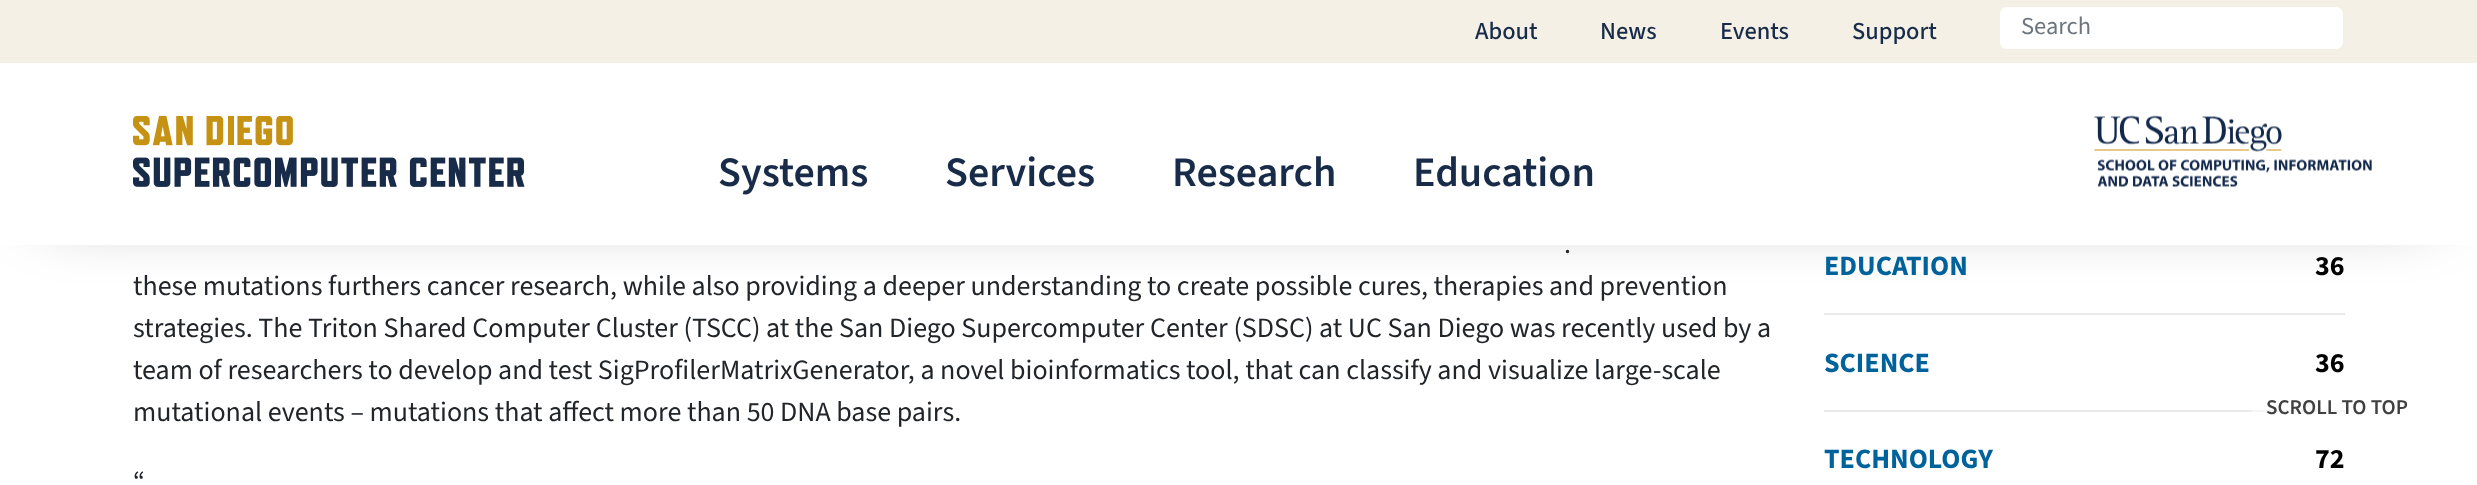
<svg xmlns="http://www.w3.org/2000/svg" width="2477" height="485" viewBox="0 0 2477 485">
  <rect width="100%" height="100%" fill="rgb(255,255,255)"/>
  <rect x="47" y="54" width="2384" height="151" fill="rgba(0,0,0,0.45)" filter="blur(35px)"/>
  <rect x="0" y="63" width="2477" height="182" fill="rgb(255,255,255)"/>
  <rect x="0" y="0" width="2477" height="63" fill="rgb(245,240,230)"/>
  <image x="133" y="116" width="392" height="71" href="pic1.png"/>
  <g font-family="'Source Sans 3'" font-size="24.5" font-weight="500" fill="rgb(24,43,73)">
    <text x="1475" y="39">About</text>
    <text x="1600" y="39">News</text>
    <text x="1720" y="39">Events</text>
    <text x="1852" y="39">Support</text>
  </g>
  <rect x="2000" y="7" width="343" height="42" rx="7" fill="rgb(255,255,255)"/>
  <text x="2021" y="34" font-family="'Source Sans 3'" font-size="24.5" fill="rgb(108,117,125)">Search</text>
  <g font-family="'Source Sans 3'" font-size="42" font-weight="600" fill="rgb(24,43,73)">
    <text x="718" y="186">Systems</text>
    <text x="945" y="186">Services</text>
    <text x="1172" y="186">Research</text>
    <text x="1413" y="186">Education</text>
  </g>
  <image x="2094" y="115" width="278" height="72" href="pic2.png"/>
  <g font-family="'Source Sans 3'" font-size="28" fill="rgb(33,37,41)">
    <text x="1564" y="253">.</text>
    <text>
      <tspan x="133" y="295">these mutations furthers cancer research, while also providing a deeper understanding to create possible cures, therapies and prevention</tspan>
      <tspan x="133" y="337">strategies. The Triton Shared Computer Cluster (TSCC) at the San Diego Supercomputer Center (SDSC) at UC San Diego was recently used by a</tspan>
      <tspan x="133" y="379">team of researchers to develop and test SigProfilerMatrixGenerator, a novel bioinformatics tool, that can classify and visualize large-scale</tspan>
      <tspan x="133" y="421">mutational events – mutations that affect more than 50 DNA base pairs.</tspan>
    </text>
    <text x="133" y="491">“</text>
  </g>
  <rect x="1824" y="313" width="521" height="2" fill="rgb(232,234,237)"/>
  <text x="1824" y="275" font-family="'Source Sans 3'" font-size="28" font-weight="bold" fill="rgb(0,98,155)">EDUCATION</text>
  <text x="2315" y="275" font-family="'Source Sans 3'" font-size="28" font-weight="bold" fill="rgb(0,0,0)">36</text>
  <rect x="1824" y="410" width="521" height="2" fill="rgb(232,234,237)"/>
  <text x="1824" y="372" font-family="'Source Sans 3'" font-size="28" font-weight="bold" fill="rgb(0,98,155)">SCIENCE</text>
  <text x="2315" y="372" font-family="'Source Sans 3'" font-size="28" font-weight="bold" fill="rgb(0,0,0)">36</text>
  <text x="1824" y="468" font-family="'Source Sans 3'" font-size="28" font-weight="bold" fill="rgb(0,98,155)">TECHNOLOGY</text>
  <text x="2315" y="468" font-family="'Source Sans 3'" font-size="28" font-weight="bold" fill="rgb(0,0,0)">72</text>
  <rect x="2252" y="380" width="170" height="51" rx="14" fill="rgba(255,255,255,0.5)"/>
  <text x="2266" y="414" font-family="'Source Sans 3'" font-size="21" font-weight="600" fill="rgb(64,64,64)">SCROLL TO TOP</text>
</svg>
